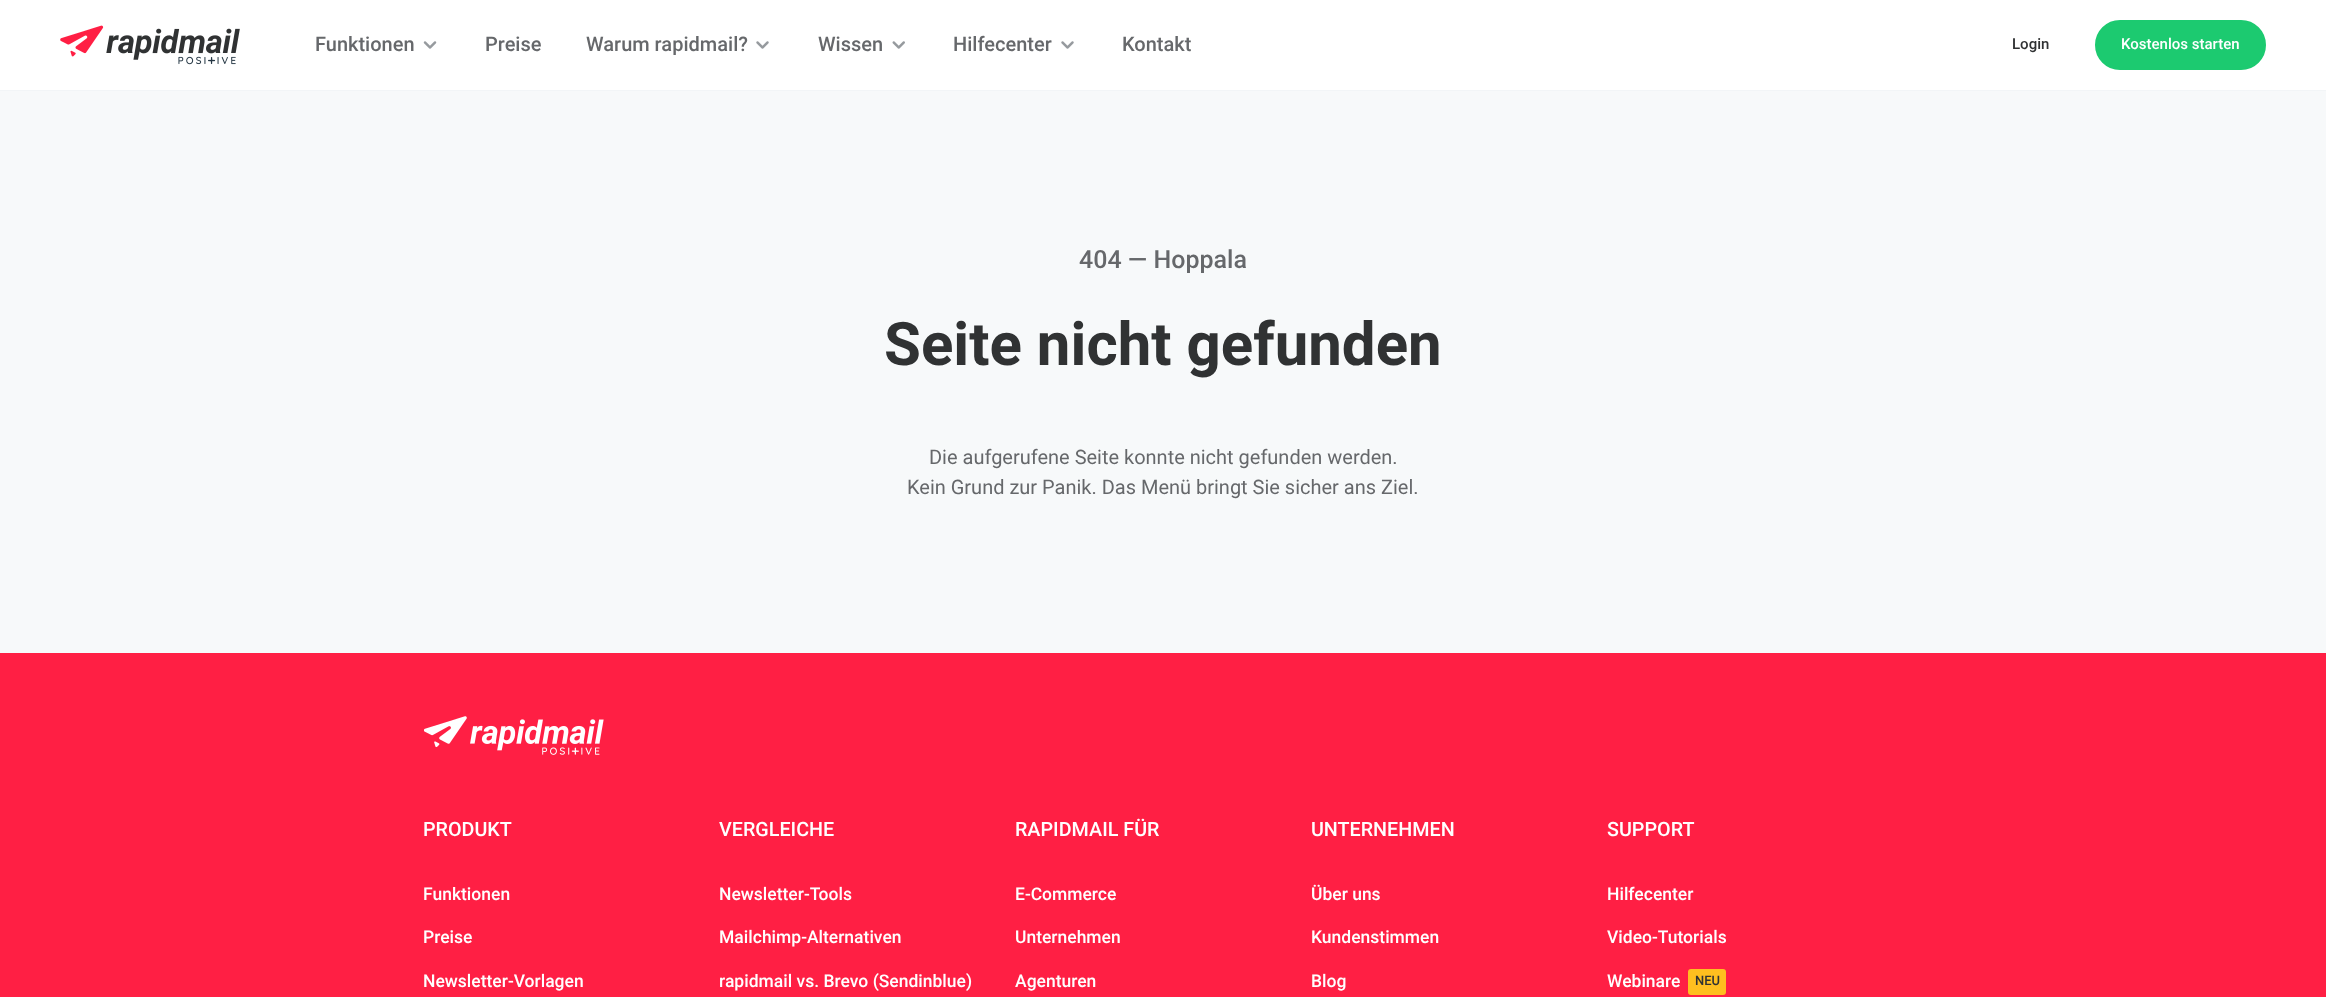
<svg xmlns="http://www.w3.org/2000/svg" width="2326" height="997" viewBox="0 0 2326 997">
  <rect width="100%" height="100%" fill="rgb(247,249,250)"/>
  <rect x="0" y="90" width="2326" height="1" fill="rgb(242,245,247)"/>
  <rect x="0" y="0" width="2326" height="90" fill="rgb(255,255,255)"/>
  <image x="60" y="25" width="180" height="40" href="pic1.png"/>
  <text x="315" y="51" font-family="Roboto" font-size="20" font-weight="500" fill="rgb(102,104,107)">Funktionen</text>
  <image x="423" y="41" width="14" height="8" href="pic2.png"/>
  <g font-family="Roboto" font-size="20" font-weight="500" fill="rgb(102,104,107)">
    <text x="485" y="51">Preise</text>
    <text x="586" y="51">Warum rapidmail?</text>
  </g>
  <image x="756" y="41" width="13" height="8" href="pic3.png"/>
  <text x="818" y="51" font-family="Roboto" font-size="20" font-weight="500" fill="rgb(102,104,107)">Wissen</text>
  <image x="892" y="41" width="13" height="8" href="pic4.png"/>
  <text x="953" y="51" font-family="Roboto" font-size="20" font-weight="500" fill="rgb(102,104,107)">Hilfecenter</text>
  <image x="1061" y="41" width="13" height="8" href="pic3.png"/>
  <text x="1122" y="51" font-family="Roboto" font-size="20" font-weight="500" fill="rgb(102,104,107)">Kontakt</text>
  <text x="2012" y="49" font-family="Roboto" font-size="15" font-weight="500" fill="rgb(48,50,51)">Login</text>
  <rect x="2096.5" y="21.5" width="168" height="47" rx="23.5" fill="rgb(28,202,112)" stroke="rgb(28,202,112)" stroke-width="3"/>
  <text x="2121" y="49" font-family="Roboto" font-size="15" font-weight="500" fill="rgb(255,255,255)">Kostenlos starten</text>
  <text x="1079" y="268" font-family="Roboto" font-size="25" font-weight="500" fill="rgb(102,104,107)">404 — Hoppala</text>
  <text x="884" y="365" font-family="Roboto" font-size="60" font-weight="bold" fill="rgb(48,50,51)">Seite nicht gefunden</text>
  <g font-family="Roboto" font-size="20" fill="rgb(102,104,107)">
    <text x="929" y="464">Die aufgerufene Seite konnte nicht gefunden werden.</text>
    <text x="907" y="494">Kein Grund zur Panik. Das Menü bringt Sie sicher ans Ziel.</text>
  </g>
  <rect x="0" y="653" width="2326" height="344" fill="rgb(255,31,68)"/>
  <image x="424" y="716" width="180" height="39" href="pic5.png"/>
  <text x="423" y="836" font-family="Roboto" font-size="19.75" font-weight="500" fill="rgb(255,255,255)">PRODUKT</text>
  <g font-family="Roboto" font-size="17.5" font-weight="500" fill="rgb(255,255,255)">
    <text x="423" y="900">Funktionen</text>
    <text x="423" y="943">Preise</text>
    <text x="423" y="987">Newsletter-Vorlagen</text>
  </g>
  <text x="719" y="836" font-family="Roboto" font-size="19.75" font-weight="500" fill="rgb(255,255,255)">VERGLEICHE</text>
  <g font-family="Roboto" font-size="17.5" font-weight="500" fill="rgb(255,255,255)">
    <text x="719" y="900">Newsletter-Tools</text>
    <text x="719" y="943">Mailchimp-Alternativen</text>
    <text x="719" y="987">rapidmail vs. Brevo (Sendinblue)</text>
  </g>
  <text x="1015" y="836" font-family="Roboto" font-size="19.75" font-weight="500" fill="rgb(255,255,255)">RAPIDMAIL FÜR</text>
  <g font-family="Roboto" font-size="17.5" font-weight="500" fill="rgb(255,255,255)">
    <text x="1015" y="900">E-Commerce</text>
    <text x="1015" y="943">Unternehmen</text>
    <text x="1015" y="987">Agenturen</text>
  </g>
  <text x="1311" y="836" font-family="Roboto" font-size="19.75" font-weight="500" fill="rgb(255,255,255)">UNTERNEHMEN</text>
  <g font-family="Roboto" font-size="17.5" font-weight="500" fill="rgb(255,255,255)">
    <text x="1311" y="900">Über uns</text>
    <text x="1311" y="943">Kundenstimmen</text>
    <text x="1311" y="987">Blog</text>
  </g>
  <text x="1607" y="836" font-family="Roboto" font-size="19.75" font-weight="500" fill="rgb(255,255,255)">SUPPORT</text>
  <g font-family="Roboto" font-size="17.5" font-weight="500" fill="rgb(255,255,255)">
    <text x="1607" y="900">Hilfecenter</text>
    <text x="1607" y="943">Video-Tutorials</text>
    <text x="1607" y="987">Webinare</text>
  </g>
  <rect x="1688" y="969" width="38" height="26" rx="3" fill="rgb(255,191,31)"/>
  <text x="1695" y="985" font-family="Roboto" font-size="13" font-weight="500" fill="rgb(48,50,51)">NEU</text>
</svg>
